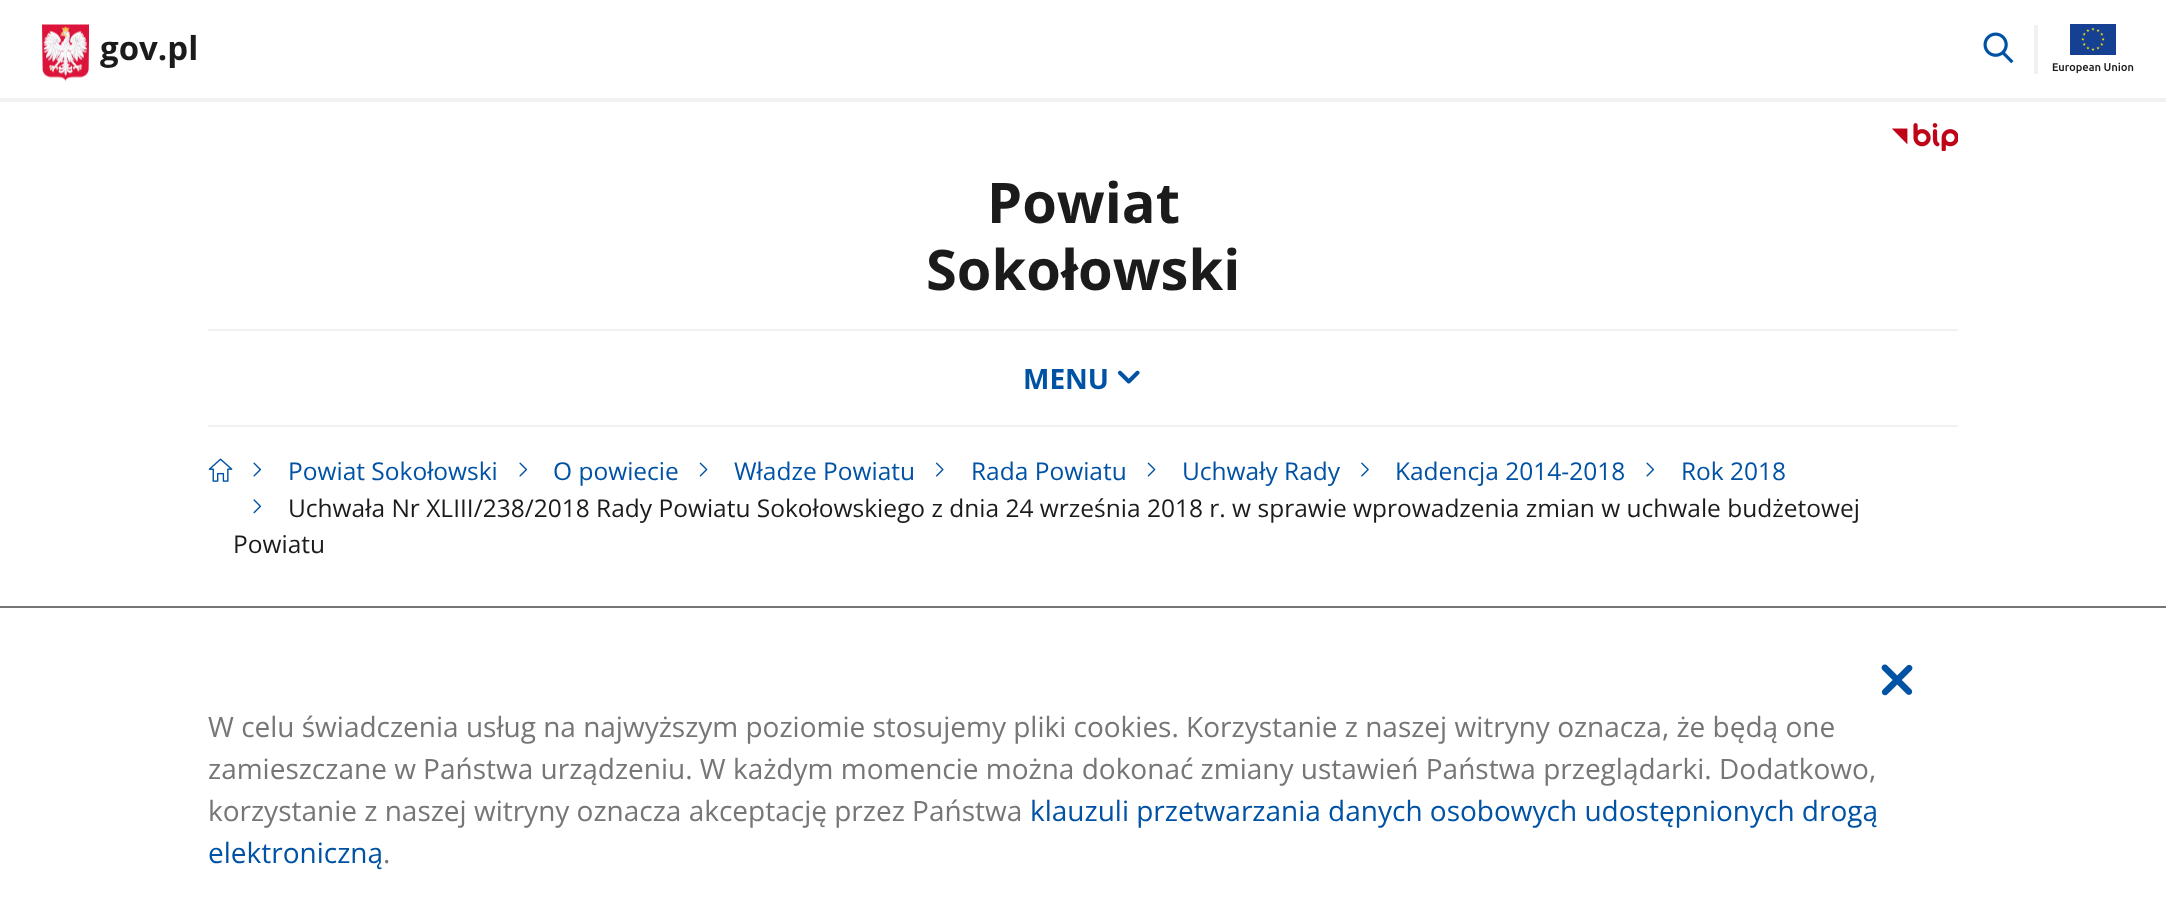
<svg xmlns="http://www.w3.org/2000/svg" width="2166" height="922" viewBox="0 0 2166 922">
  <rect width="100%" height="100%" fill="rgb(255,255,255)"/>
  <rect x="0" y="98" width="2166" height="4" fill="rgb(241,241,241)"/>
  <image x="42" y="24" width="47" height="57" href="pic1.png"/>
  <text x="100" y="60" font-family="Open Sans" font-size="33" font-weight="bold" fill="rgb(27,27,27)">gov.pl</text>
  <image x="1983" y="32" width="31" height="32" href="pic2.png"/>
  <rect x="2034" y="25" width="4" height="49" fill="rgb(241,241,241)"/>
  <image x="2052" y="24" width="82" height="50" href="pic3.png"/>
  <image x="1892" y="123" width="66" height="28" href="pic4.png"/>
  <g font-family="Open Sans" font-size="56" font-weight="bold" fill="rgb(27,27,27)">
    <text x="987" y="223">Powiat</text>
    <text x="926" y="290">Sokołowski</text>
  </g>
  <rect x="208" y="329" width="1750" height="2" fill="rgb(241,241,241)"/>
  <rect x="208" y="425" width="1750" height="2" fill="rgb(241,241,241)"/>
  <text x="1023" y="389" font-family="Open Sans" font-size="28" font-weight="bold" fill="rgb(0,82,165)">MENU</text>
  <image x="1117" y="370" width="23" height="14" href="pic5.png"/>
  <image x="208" y="458" width="25" height="24" href="pic6.png"/>
  <image x="253" y="462" width="9" height="15" href="pic7.png"/>
  <text x="288" y="480" font-family="Open Sans" font-size="24.5" fill="rgb(0,82,165)">Powiat Sokołowski</text>
  <image x="519" y="462" width="9" height="15" href="pic7.png"/>
  <text x="553" y="480" font-family="Open Sans" font-size="24.5" fill="rgb(0,82,165)">O powiecie</text>
  <image x="699" y="462" width="9" height="15" href="pic8.png"/>
  <text x="734" y="480" font-family="Open Sans" font-size="24.5" fill="rgb(0,82,165)">Władze Powiatu</text>
  <image x="935" y="462" width="9" height="15" href="pic9.png"/>
  <text x="971" y="480" font-family="Open Sans" font-size="24.5" fill="rgb(0,82,165)">Rada Powiatu</text>
  <image x="1147" y="462" width="9" height="15" href="pic8.png"/>
  <text x="1182" y="480" font-family="Open Sans" font-size="24.5" fill="rgb(0,82,165)">Uchwały Rady</text>
  <image x="1361" y="462" width="8" height="15" href="pic10.png"/>
  <text x="1395" y="480" font-family="Open Sans" font-size="24.5" fill="rgb(0,82,165)">Kadencja 2014-2018</text>
  <image x="1646" y="462" width="9" height="15" href="pic7.png"/>
  <text x="1681" y="480" font-family="Open Sans" font-size="24.5" fill="rgb(0,82,165)">Rok 2018</text>
  <image x="253" y="499" width="9" height="15" href="pic11.png"/>
  <g font-family="Open Sans" font-size="24.5" fill="rgb(27,27,27)">
    <text x="288" y="517">Uchwała Nr XLIII/238/2018 Rady Powiatu Sokołowskiego z dnia 24 września 2018 r. w sprawie wprowadzenia zmian w uchwale budżetowej</text>
    <text x="233" y="553">Powiatu</text>
  </g>
  <rect x="0" y="606" width="2166" height="2" fill="rgb(118,118,118)"/>
  <image x="1881" y="664" width="32" height="32" href="pic12.png"/>
  <g font-family="Open Sans" font-size="28" fill="rgb(118,118,118)">
    <text>
      <tspan x="208" y="737">W celu świadczenia usług na najwyższym poziomie stosujemy pliki cookies. Korzystanie z naszej witryny oznacza, że będą one</tspan>
      <tspan x="208" y="779">zamieszczane w Państwa urządzeniu. W każdym momencie można dokonać zmiany ustawień Państwa przeglądarki. Dodatkowo,</tspan>
      <tspan x="208" y="821">korzystanie z naszej witryny oznacza akceptację przez Państwa</tspan>
    </text>
  </g>
  <g font-family="Open Sans" font-size="28" fill="rgb(0,82,165)">
    <text x="1030" y="821">klauzuli przetwarzania danych osobowych udostępnionych drogą</text>
    <text x="208" y="863">elektroniczną</text>
  </g>
  <text x="383" y="863" font-family="Open Sans" font-size="28" fill="rgb(118,118,118)">.</text>
</svg>
